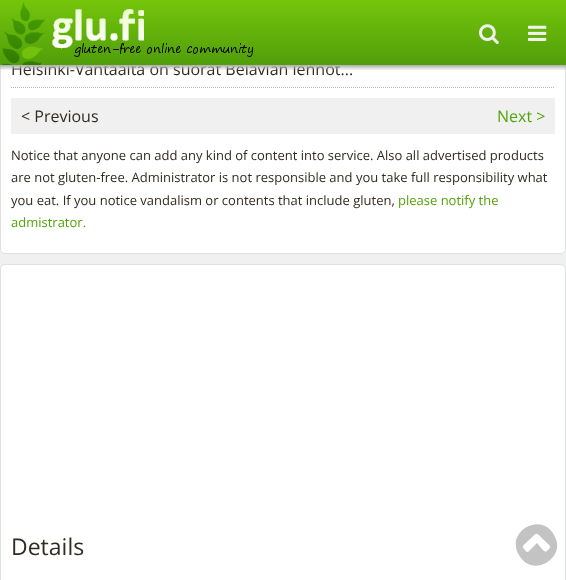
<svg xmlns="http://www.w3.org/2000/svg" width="566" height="580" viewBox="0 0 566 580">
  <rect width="100%" height="100%" fill="rgb(240,240,240)"/>
  <rect x="0.5" y="-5.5" width="565" height="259" rx="4.5" fill="rgb(255,255,255)" stroke="rgb(223,225,224)"/>
  <text x="11" y="75" font-family="Open Sans" font-size="16" fill="rgb(50,43,34)">Helsinki-Vantaalta on suorat Belavian lennot...</text>
  <image x="0" y="0" width="566" height="65" href="pic1.png"/>
  <image x="2" y="2" width="251" height="63" href="pic2.png"/>
  <image x="479" y="24" width="20" height="20" href="pic3.png"/>
  <image x="528" y="25" width="19" height="16" href="pic4.png"/>
  <image x="0" y="65" width="566" height="5" href="pic5.png"/>
  <path d="M11 87.5H555" fill="none" stroke="rgb(180,180,180)" stroke-dasharray="1 1"/>
  <rect x="11" y="98" width="544" height="36" fill="rgb(240,240,240)"/>
  <text x="21" y="122" font-family="Open Sans" font-size="16" fill="rgb(50,43,34)">&lt; Previous</text>
  <text x="497" y="122" font-family="Open Sans" font-size="16" fill="rgb(84,163,10)">Next &gt;</text>
  <g font-family="Open Sans" font-size="13" fill="rgb(50,43,34)">
    <text>
      <tspan x="11" y="160">Notice that anyone can add any kind of content into service. Also all advertised products</tspan>
      <tspan x="11" y="182">are not gluten-free. Administrator is not responsible and you take full responsibility what</tspan>
      <tspan x="11" y="205">you eat. If you notice vandalism or contents that include gluten,</tspan>
    </text>
  </g>
  <g font-family="Open Sans" font-size="13" fill="rgb(84,163,10)">
    <text x="398" y="205">please notify the</text>
    <text x="11" y="227">admistrator.</text>
  </g>
  <rect x="0.5" y="264.5" width="565" height="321" rx="4.5" fill="rgb(255,255,255)" stroke="rgb(223,225,224)"/>
  <text x="11" y="555" font-family="Open Sans" font-size="23" fill="rgb(50,43,34)">Details</text>
  <path d="M547 551C552 546 551 547 546 542C534 531 539 531 527 542C523 546 521 546 525 550C525 551 527 552 528 552L537 543L542 549C543 550 545 553 547 551ZM554 535C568 558 532 579 519 555C505 532 541 511 554 535Z" fill="rgb(195,195,195)"/>
</svg>
